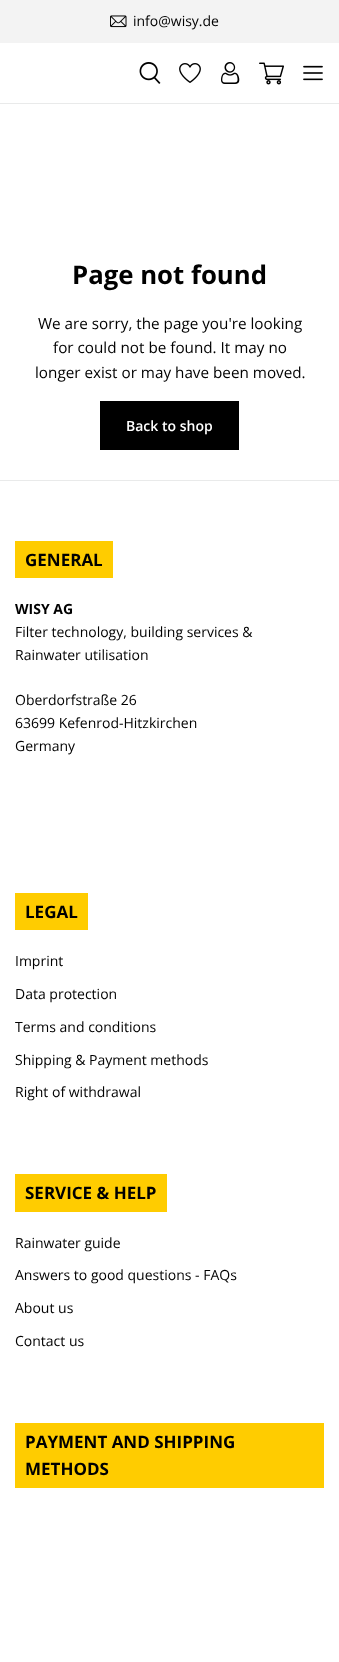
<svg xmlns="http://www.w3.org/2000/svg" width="339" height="1662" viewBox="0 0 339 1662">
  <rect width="100%" height="100%" fill="rgb(255,255,255)"/>
  <rect x="0" y="0" width="339" height="43" fill="rgb(243,243,243)"/>
  <image x="110" y="15" width="17" height="13" href="pic1.png"/>
  <text x="133" y="26" font-family="Open Sans" font-size="14" fill="rgb(0,0,0)">info@wisy.de</text>
  <rect x="0" y="103" width="339" height="1" fill="rgb(233,234,234)"/>
  <image x="139" y="62" width="22" height="22" href="pic2.png"/>
  <image x="179" y="63" width="22" height="20" href="pic3.png"/>
  <image x="221" y="62" width="19" height="22" href="pic4.png"/>
  <image x="259" y="62" width="25" height="23" href="pic5.png"/>
  <image x="303" y="65" width="20" height="16" href="pic6.png"/>
  <text x="72" y="284" font-family="Open Sans" font-size="25.75" font-weight="bold" fill="rgb(0,0,0)">Page not found</text>
  <g font-family="Open Sans" font-size="15.25" fill="rgb(0,0,0)">
    <text x="38" y="329">We are sorry, the page you're looking</text>
    <text x="53" y="353">for could not be found. It may no</text>
    <text x="35" y="378">longer exist or may have been moved.</text>
  </g>
  <rect x="100" y="401" width="139" height="49" fill="rgb(0,0,0)"/>
  <text x="126" y="431" font-family="Open Sans" font-size="14" font-weight="600" fill="rgb(255,255,255)">Back to shop</text>
  <rect x="0" y="480" width="339" height="1" fill="rgb(233,234,234)"/>
  <rect x="15" y="541" width="98" height="37" fill="rgb(255,204,0)"/>
  <text x="25" y="566" font-family="Open Sans" font-size="17" font-weight="bold" fill="rgb(0,0,0)">GENERAL</text>
  <text x="15" y="614" font-family="Open Sans" font-size="14" font-weight="bold" fill="rgb(0,0,0)">WISY AG</text>
  <g font-family="Open Sans" font-size="14" fill="rgb(0,0,0)">
    <text>
      <tspan x="15" y="637">Filter technology, building services &amp;</tspan>
      <tspan x="15" y="660">Rainwater utilisation</tspan>
    </text>
    <text>
      <tspan x="15" y="705">Oberdorfstraße 26</tspan>
      <tspan x="15" y="728">63699 Kefenrod-Hitzkirchen</tspan>
      <tspan x="15" y="751">Germany</tspan>
    </text>
  </g>
  <rect x="15" y="893" width="73" height="37" fill="rgb(255,204,0)"/>
  <text x="25" y="918" font-family="Open Sans" font-size="17" font-weight="bold" fill="rgb(0,0,0)">LEGAL</text>
  <g font-family="Open Sans" font-size="14" fill="rgb(0,0,0)">
    <text x="15" y="966">Imprint</text>
    <text x="15" y="999">Data protection</text>
    <text x="15" y="1032">Terms and conditions</text>
    <text x="15" y="1065">Shipping &amp; Payment methods</text>
    <text x="15" y="1097">Right of withdrawal</text>
  </g>
  <rect x="15" y="1174" width="152" height="38" fill="rgb(255,204,0)"/>
  <text x="25" y="1199" font-family="Open Sans" font-size="17" font-weight="bold" fill="rgb(0,0,0)">SERVICE &amp; HELP</text>
  <g font-family="Open Sans" font-size="14" fill="rgb(0,0,0)">
    <text x="15" y="1248">Rainwater guide</text>
    <text x="15" y="1280">Answers to good questions - FAQs</text>
    <text x="15" y="1313">About us</text>
    <text x="15" y="1346">Contact us</text>
  </g>
  <rect x="15" y="1423" width="309" height="65" fill="rgb(255,204,0)"/>
  <g font-family="Open Sans" font-size="17" font-weight="bold" fill="rgb(0,0,0)">
    <text>
      <tspan x="25" y="1448">PAYMENT AND SHIPPING</tspan>
      <tspan x="25" y="1475">METHODS</tspan>
    </text>
  </g>
</svg>
